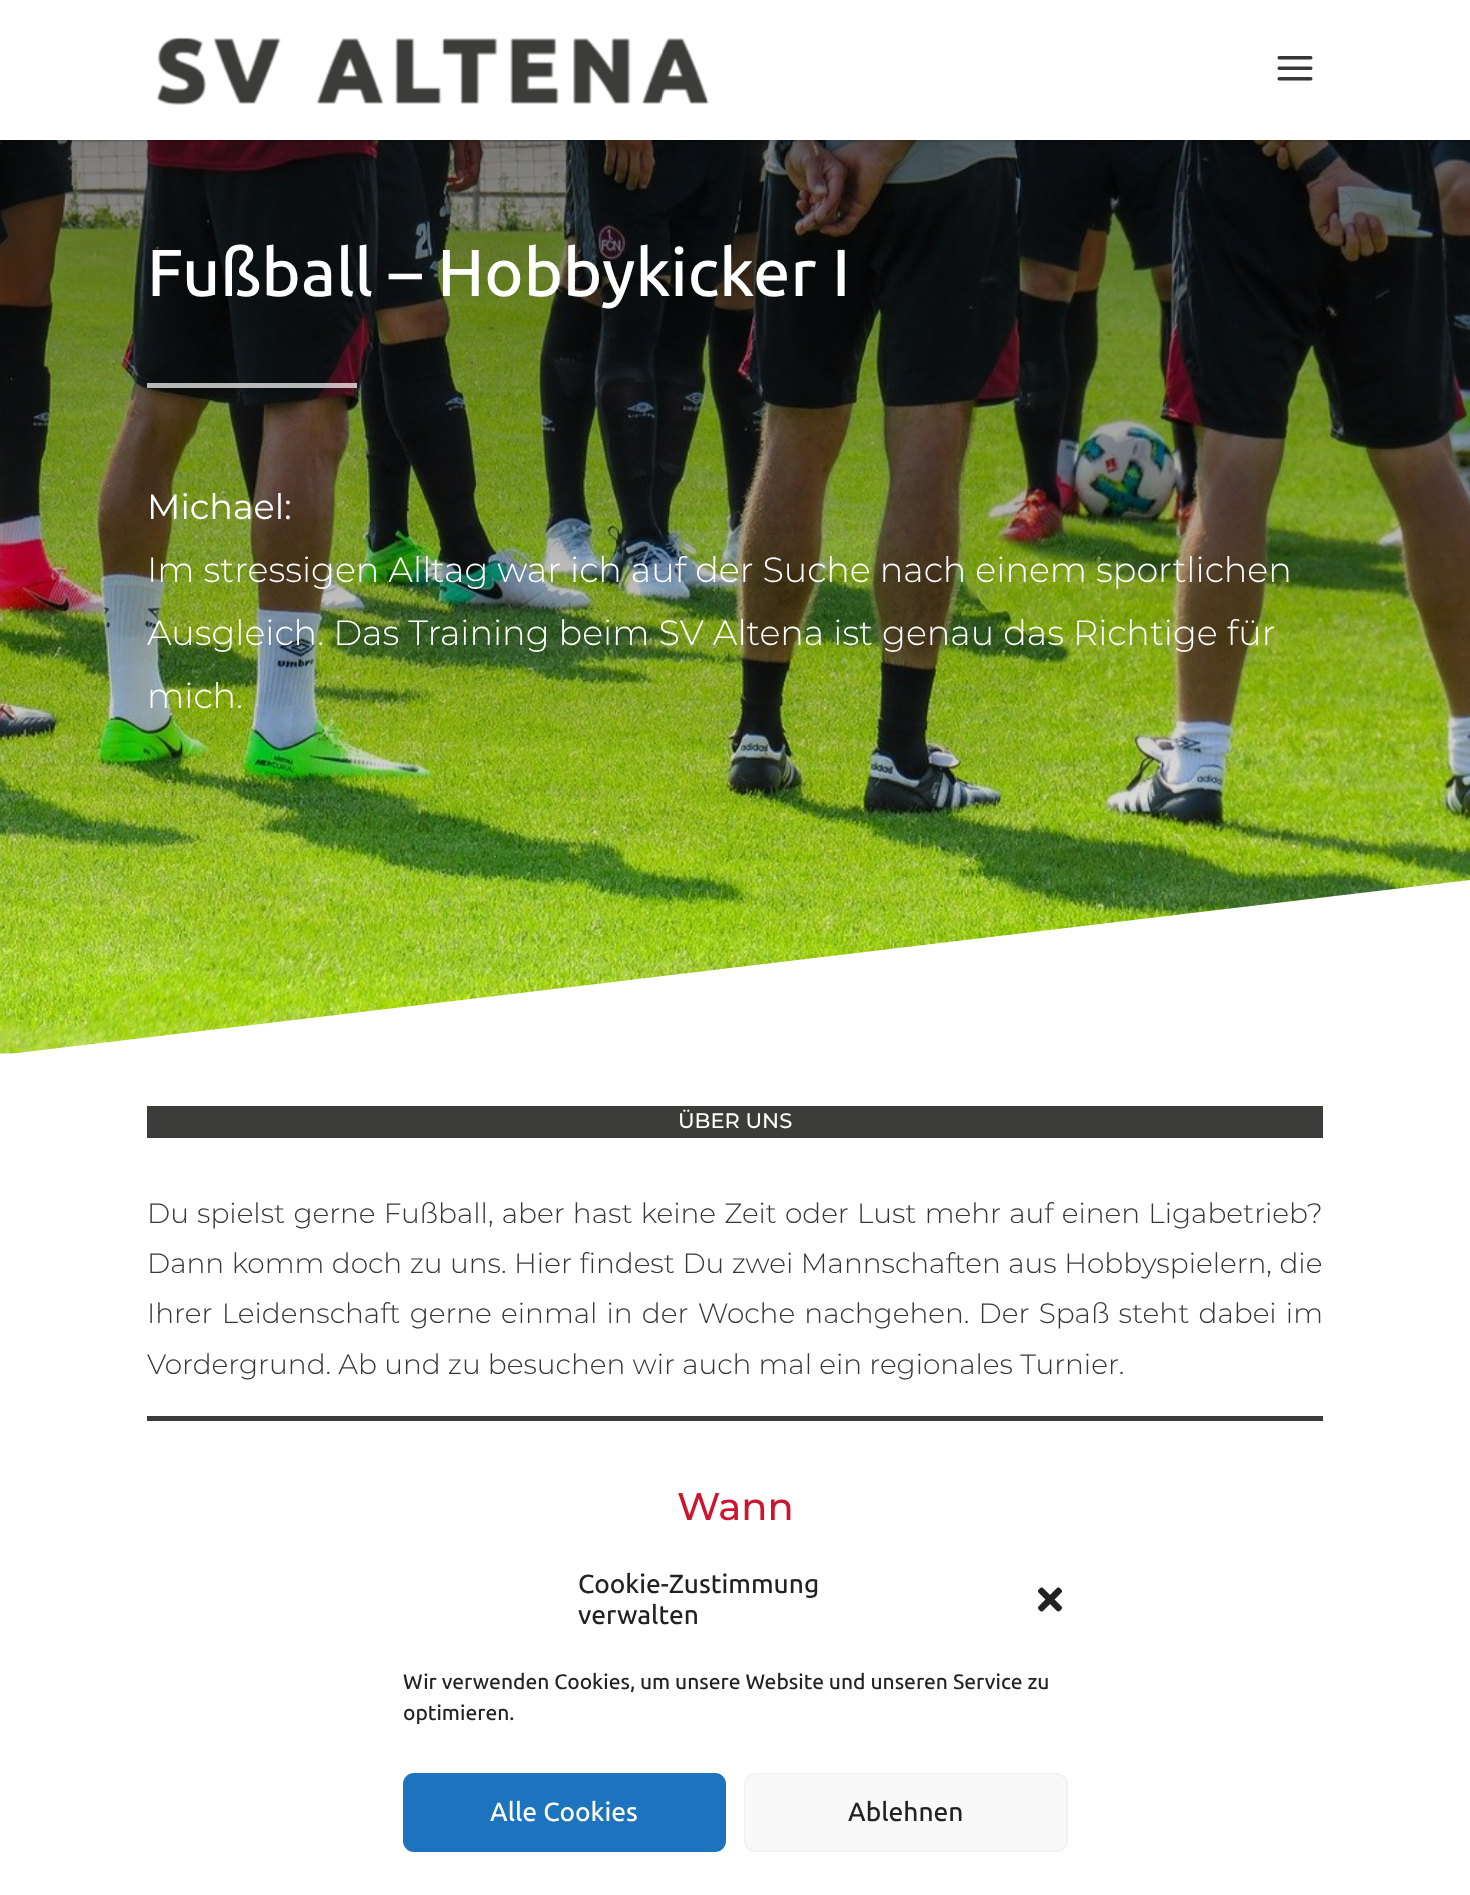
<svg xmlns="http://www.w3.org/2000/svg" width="1470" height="1895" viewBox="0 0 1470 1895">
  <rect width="100%" height="100%" fill="rgb(255,255,255)"/>
  <image x="0" y="140" width="1470" height="914" href="pic3.png"/>
  <rect x="56" y="140" width="1414" height="2" fill="rgba(0,0,0,0.1)"/>
  <image x="157" y="37" width="552" height="68" href="pic1.png"/>
  <image x="1277" y="56" width="36" height="25" href="pic2.png"/>
  <text x="147" y="296" font-family="Ubuntu" font-size="66.5" font-weight="500" fill="rgb(255,255,255)">Fußball – Hobbykicker I</text>
  <rect x="147" y="383" width="210" height="5" fill="rgba(255,255,255,0.7)"/>
  <text x="147" y="519" font-family="Montserrat" font-size="35" fill="rgb(255,255,255)">Michael:</text>
  <g font-family="Montserrat" font-size="35" font-weight="300" fill="rgb(255,255,255)">
    <text>
      <tspan x="147" y="582">Im stressigen Alltag war ich auf der Suche nach einem sportlichen</tspan>
      <tspan x="147" y="645">Ausgleich. Das Training beim SV Altena ist genau das Richtige für</tspan>
      <tspan x="147" y="708">mich.</tspan>
    </text>
  </g>
  <path d="M1470 880V1055H0Z" fill="rgb(255,255,255)"/>
  <rect x="147" y="1106" width="1176" height="32" fill="rgb(60,60,59)"/>
  <text x="678" y="1128" font-family="Montserrat" font-size="21" font-weight="500" fill="rgb(255,255,255)">ÜBER UNS</text>
  <g font-family="Montserrat" font-size="28" font-weight="300" fill="rgb(54,54,54)">
    <text>
      <tspan x="147" y="1223" word-spacing="1">Du spielst gerne Fußball, aber hast keine Zeit oder Lust mehr auf einen Ligabetrieb?</tspan>
      <tspan x="147" y="1273" word-spacing="0.3">Dann komm doch zu uns. Hier findest Du zwei Mannschaften aus Hobbyspielern, die</tspan>
      <tspan x="147" y="1323" word-spacing="2">Ihrer Leidenschaft gerne einmal in der Woche nachgehen. Der Spaß steht dabei im</tspan>
      <tspan x="147" y="1374">Vordergrund. Ab und zu besuchen wir auch mal ein regionales Turnier.</tspan>
    </text>
  </g>
  <rect x="147" y="1416" width="1176" height="5" fill="rgb(60,60,59)"/>
  <text x="677" y="1520" font-family="Montserrat" font-size="38.5" font-weight="500" fill="rgb(204,22,49)">Wann</text>
  <g font-family="Ubuntu" font-size="26.25" font-weight="500" fill="rgb(34,34,34)">
    <text>
      <tspan x="578" y="1593">Cookie-Zustimmung</tspan>
      <tspan x="578" y="1624">verwalten</tspan>
    </text>
  </g>
  <image x="1038" y="1587" width="24" height="25" href="pic4.png"/>
  <g font-family="Ubuntu" font-size="21" font-weight="500" fill="rgb(34,34,34)">
    <text>
      <tspan x="403" y="1689">Wir verwenden Cookies, um unsere Website und unseren Service zu</tspan>
      <tspan x="403" y="1720">optimieren.</tspan>
    </text>
  </g>
  <rect x="404" y="1774" width="321" height="77" rx="10" fill="rgb(30,115,190)" stroke="rgb(30,115,190)" stroke-width="2"/>
  <text x="490" y="1821" font-family="Ubuntu" font-size="26.25" font-weight="500" fill="rgb(255,255,255)">Alle Cookies</text>
  <rect x="745" y="1774" width="322" height="77" rx="10" fill="rgb(249,249,249)" stroke="rgb(242,242,242)" stroke-width="2"/>
  <text x="848" y="1821" font-family="Ubuntu" font-size="26.25" font-weight="500" fill="rgb(34,34,34)">Ablehnen</text>
</svg>
